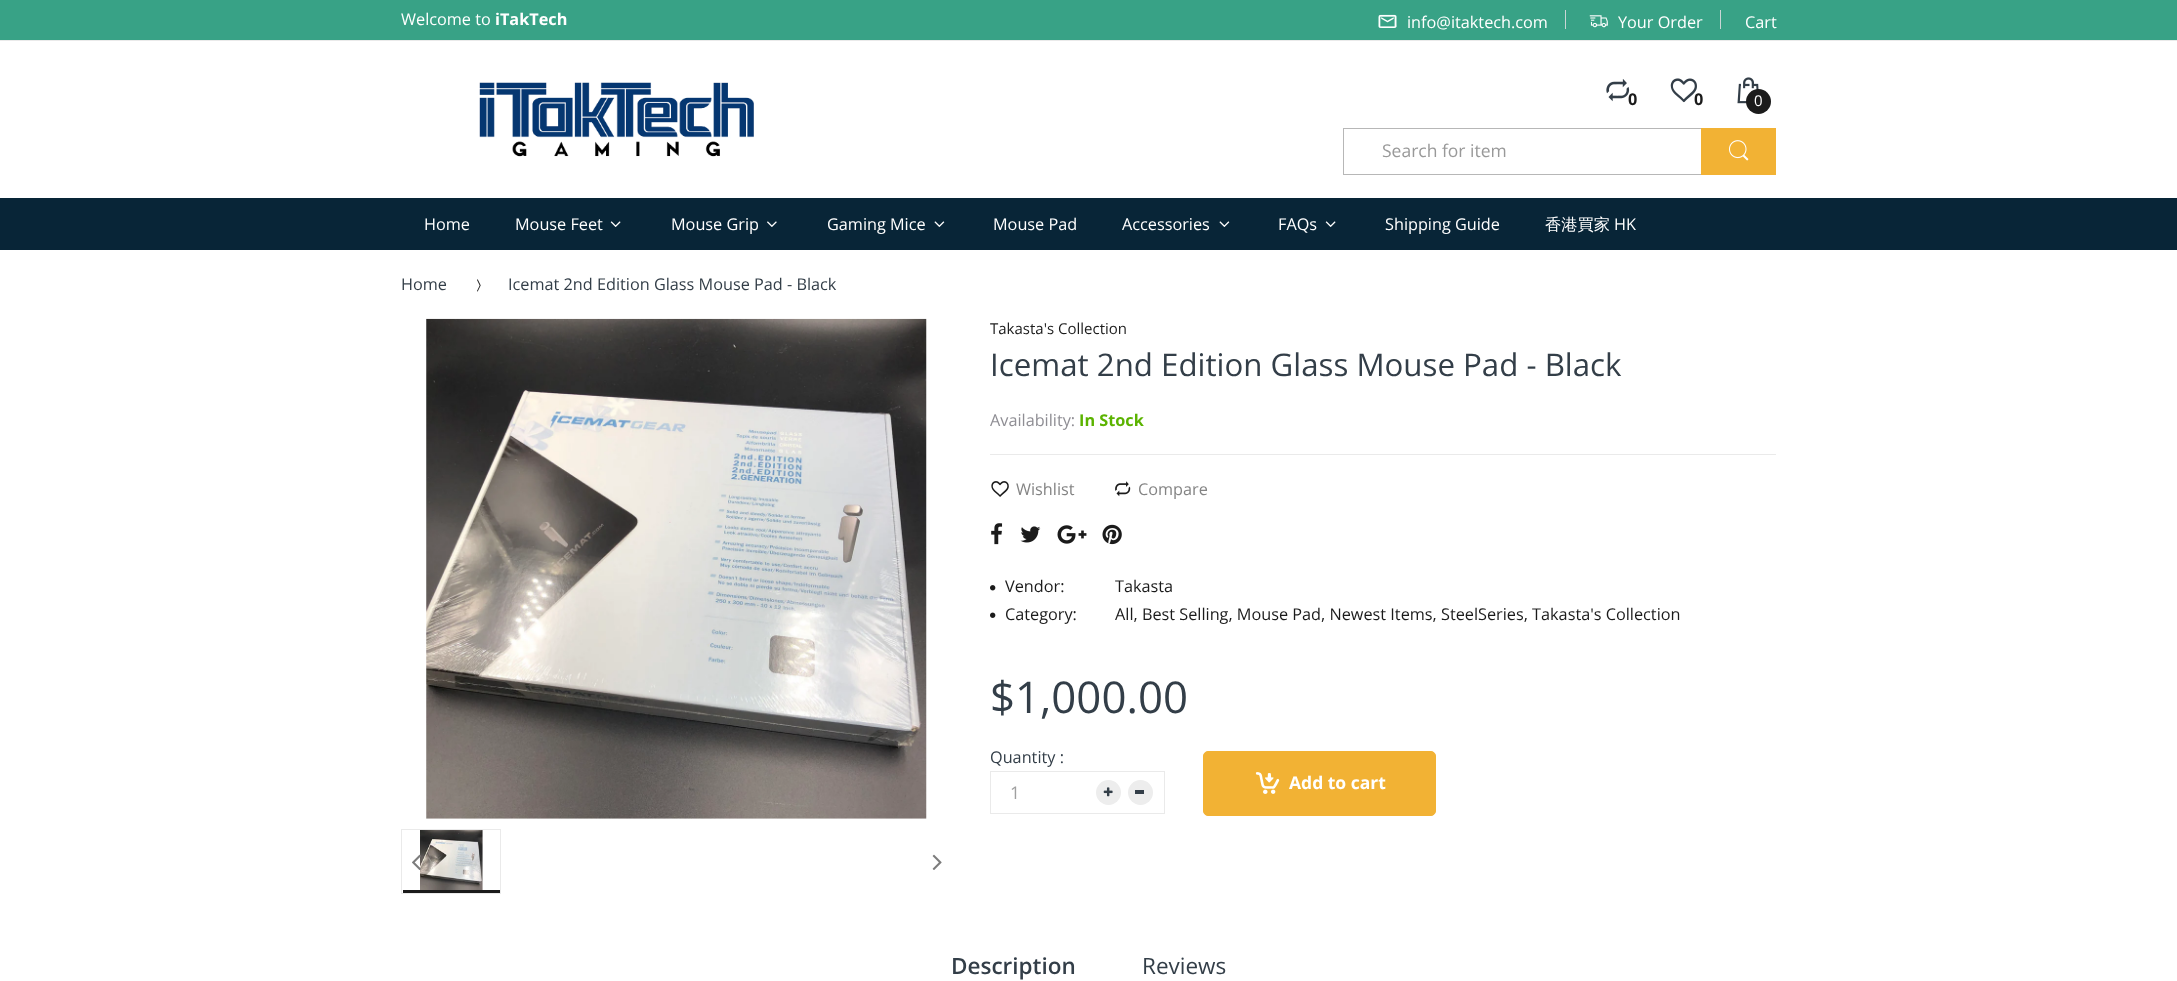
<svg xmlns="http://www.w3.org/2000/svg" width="2177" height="981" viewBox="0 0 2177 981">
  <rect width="100%" height="100%" fill="rgb(255,255,255)"/>
  <rect x="0" y="0" width="2177" height="40" fill="rgb(56,162,134)"/>
  <rect x="0" y="40" width="2177" height="1" fill="rgb(234,234,234)"/>
  <text x="401" y="25" font-family="Open Sans" font-size="16.25" fill="rgb(255,255,255)">Welcome to</text>
  <text x="495" y="25" font-family="Open Sans" font-size="16.25" font-weight="bold" fill="rgb(255,255,255)">iTakTech</text>
  <image x="1378" y="14" width="19" height="14" href="pic1.png"/>
  <text x="1407" y="28" font-family="Open Sans" font-size="16.25" fill="rgb(255,255,255)">info@itaktech.com</text>
  <rect x="1565" y="10" width="1" height="19" fill="rgb(202,213,213)"/>
  <image x="1589" y="15" width="19" height="13" href="pic2.png"/>
  <text x="1618" y="28" font-family="Open Sans" font-size="16.25" fill="rgb(255,255,255)">Your Order</text>
  <rect x="1720" y="10" width="1" height="19" fill="rgb(202,213,213)"/>
  <text x="1745" y="28" font-family="Open Sans" font-size="16.25" fill="rgb(255,255,255)">Cart</text>
  <image x="479" y="82" width="275" height="75" href="pic3.png"/>
  <image x="1606" y="79" width="24" height="23" href="pic4.png"/>
  <text x="1628" y="105" font-family="Open Sans" font-size="16.25" font-weight="bold" fill="rgb(27,27,27)">0</text>
  <image x="1670" y="78" width="27" height="25" href="pic5.png"/>
  <text x="1694" y="105" font-family="Open Sans" font-size="16.25" font-weight="bold" fill="rgb(27,27,27)">0</text>
  <image x="1737" y="77" width="22" height="27" href="pic6.png"/>
  <circle cx="1758.5" cy="101.5" r="12.5" fill="rgb(27,27,27)"/>
  <text x="1754" y="106" font-family="Open Sans" font-size="15" fill="rgb(255,255,255)">0</text>
  <rect x="1343.5" y="128.5" width="432" height="46" fill="none" stroke="rgb(183,183,183)"/>
  <text x="1382" y="157" font-family="Open Sans" font-size="17.5" fill="rgb(153,153,153)">Search for item</text>
  <rect x="1701" y="128" width="75" height="47" fill="rgb(242,178,52)"/>
  <image x="1729" y="140" width="20" height="21" href="pic7.png"/>
  <rect x="0" y="198" width="2177" height="52" fill="rgb(8,37,55)"/>
  <g font-family="Open Sans" font-size="16.25" fill="rgb(255,255,255)">
    <text x="424" y="230">Home</text>
    <text x="515" y="230">Mouse Feet</text>
  </g>
  <image x="610" y="221" width="11" height="6" href="pic8.png"/>
  <text x="671" y="230" font-family="Open Sans" font-size="16.25" fill="rgb(255,255,255)">Mouse Grip</text>
  <image x="767" y="221" width="10" height="6" href="pic9.png"/>
  <text x="827" y="230" font-family="Open Sans" font-size="16.25" fill="rgb(255,255,255)">Gaming Mice</text>
  <image x="934" y="221" width="11" height="6" href="pic10.png"/>
  <g font-family="Open Sans" font-size="16.25" fill="rgb(255,255,255)">
    <text x="993" y="230">Mouse Pad</text>
    <text x="1122" y="230">Accessories</text>
  </g>
  <image x="1219" y="221" width="11" height="6" href="pic10.png"/>
  <text x="1278" y="230" font-family="Open Sans" font-size="16.25" fill="rgb(255,255,255)">FAQs</text>
  <image x="1325" y="221" width="11" height="6" href="pic8.png"/>
  <text x="1385" y="230" font-family="Open Sans" font-size="16.25" fill="rgb(255,255,255)">Shipping Guide</text>
  <text x="1545" y="230" font-family="WenQuanYi Zen Hei" font-size="16.25" font-weight="500" fill="rgb(255,255,255)">香港買家</text>
  <text x="1614" y="230" font-family="Open Sans" font-size="16.25" fill="rgb(255,255,255)">HK</text>
  <text x="401" y="290" font-family="Open Sans" font-size="16.25" fill="rgb(51,62,72)">Home</text>
  <image x="477" y="279" width="4" height="13" href="pic11.png"/>
  <text x="508" y="290" font-family="Open Sans" font-size="16.25" fill="rgb(51,62,72)">Icemat 2nd Edition Glass Mouse Pad - Black</text>
  <image x="426" y="318" width="501" height="501" href="pic12.png"/>
  <rect x="401.5" y="829.5" width="99" height="64" fill="none" stroke="rgb(234,234,234)"/>
  <image x="420" y="830" width="63" height="60" href="pic13.png"/>
  <rect x="403" y="890" width="97" height="3" fill="rgb(27,27,27)"/>
  <image x="412" y="854" width="9" height="16" href="pic14.png"/>
  <image x="932" y="854" width="10" height="16" href="pic15.png"/>
  <text x="990" y="334" font-family="Open Sans" font-size="15" fill="rgb(27,27,27)">Takasta's Collection</text>
  <text x="990" y="376" font-family="Open Sans" font-size="31.25" fill="rgb(51,62,72)">Icemat 2nd Edition Glass Mouse Pad - Black</text>
  <rect x="990" y="454" width="786" height="1" fill="rgb(234,234,234)"/>
  <text x="990" y="426" font-family="Open Sans" font-size="16.25" fill="rgb(143,142,148)">Availability:</text>
  <text x="1079" y="426" font-family="Open Sans" font-size="16.25" font-weight="bold" fill="rgb(91,179,0)">In Stock</text>
  <image x="991" y="481" width="18" height="16" href="pic16.png"/>
  <text x="1016" y="495" font-family="Open Sans" font-size="16.25" fill="rgb(132,132,132)">Wishlist</text>
  <image x="1115" y="481" width="16" height="16" href="pic17.png"/>
  <text x="1138" y="495" font-family="Open Sans" font-size="16.25" fill="rgb(132,132,132)">Compare</text>
  <image x="991" y="523" width="12" height="22" href="pic18.png"/>
  <image x="1020" y="526" width="21" height="17" href="pic19.png"/>
  <image x="1057" y="525" width="30" height="19" href="pic20.png"/>
  <image x="1102" y="524" width="20" height="21" href="pic21.png"/>
  <image x="990" y="585" width="6" height="6" href="pic22.png"/>
  <g font-family="Open Sans" font-size="16.25" fill="rgb(27,27,27)">
    <text x="1005" y="592">Vendor:</text>
    <text x="1115" y="592">Takasta</text>
  </g>
  <image x="990" y="612" width="6" height="6" href="pic23.png"/>
  <g font-family="Open Sans" font-size="16.25" fill="rgb(27,27,27)">
    <text x="1005" y="620">Category:</text>
    <text x="1115" y="620">All, Best Selling, Mouse Pad, Newest Items, SteelSeries, Takasta's Collection</text>
  </g>
  <text x="990" y="713" font-family="Open Sans" font-size="43.75" fill="rgb(51,62,72)">$1,000.00</text>
  <text x="990" y="763" font-family="Open Sans" font-size="16.25" fill="rgb(51,62,72)">Quantity :</text>
  <rect x="990.5" y="771.5" width="174" height="42" fill="none" stroke="rgb(234,234,234)"/>
  <text x="1010" y="799" font-family="Open Sans" font-size="17.5" fill="rgb(160,160,160)">1</text>
  <circle cx="1108.5" cy="792.5" r="12.5" fill="rgb(237,237,237)"/>
  <image x="1103" y="787" width="10" height="10" href="pic24.png"/>
  <circle cx="1140.5" cy="792.5" r="12.5" fill="rgb(237,237,237)"/>
  <rect x="1135" y="790" width="9" height="4" fill="rgb(51,62,72)"/>
  <rect x="1203.5" y="751.5" width="232" height="64" rx="4.5" fill="rgb(242,178,52)" stroke="rgb(242,178,52)"/>
  <image x="1255" y="772" width="25" height="22" href="pic25.png"/>
  <text x="1289" y="789" font-family="Open Sans" font-size="17.5" font-weight="bold" fill="rgb(255,255,255)">Add to cart</text>
  <text x="951" y="974" font-family="Open Sans" font-size="22.5" font-weight="600" fill="rgb(51,62,72)">Description</text>
  <text x="1142" y="974" font-family="Open Sans" font-size="22.5" fill="rgb(51,62,72)">Reviews</text>
</svg>
